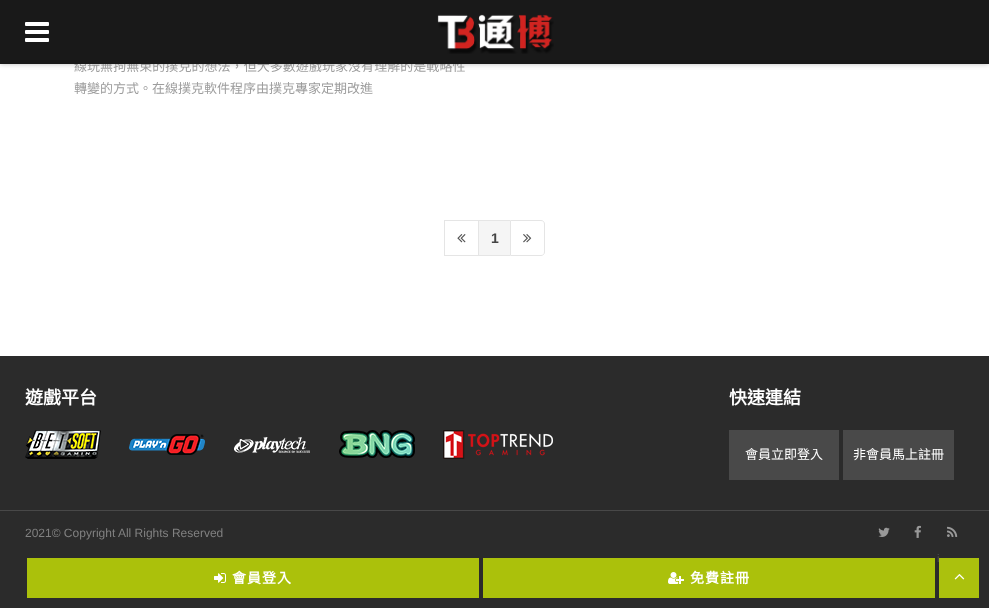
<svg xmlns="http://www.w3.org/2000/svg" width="989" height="608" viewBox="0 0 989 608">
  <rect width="100%" height="100%" fill="rgb(255,255,255)"/>
  <text x="74" y="71" font-family="Noto Sans CJK TC" font-size="13" letter-spacing="0.05" fill="rgb(157,157,157)">線玩無拘無束的撲克的想法，但大多數遊戲玩家沒有理解的是戰略性</text>
  <text x="74" y="93" font-family="Noto Sans CJK TC" font-size="13" fill="rgb(157,157,157)">轉變的方式。在線撲克軟件程序由撲克專家定期改進</text>
  <rect x="444" y="220" width="66" height="1" fill="rgb(229,229,229)"/>
  <rect x="444" y="255" width="66" height="1" fill="rgb(229,229,229)"/>
  <rect x="444" y="220" width="1" height="36" fill="rgb(229,229,229)"/>
  <image x="457" y="234" width="9" height="9" href="pic1.png"/>
  <path d="M510.5 220.5H541C543 220.5 544.5 222 544.5 224V252C544.5 254 543 255.5 541 255.5H510.5Z" fill="none" stroke="rgb(229,229,229)"/>
  <image x="523" y="234" width="9" height="9" href="pic2.png"/>
  <rect x="479" y="221" width="31" height="34" fill="rgb(245,245,245)"/>
  <rect x="478" y="220" width="1" height="36" fill="rgb(229,229,229)"/>
  <text x="491" y="243" font-family="Liberation Sans" font-size="14" font-weight="bold" fill="rgb(68,68,68)">1</text>
  <rect x="0" y="356" width="989" height="252" fill="rgb(43,43,43)"/>
  <text x="25" y="404" font-family="Noto Sans CJK TC" font-size="18" font-weight="bold" fill="rgb(255,255,255)">遊戲平台</text>
  <image x="25" y="430" width="76" height="29" href="pic3.png"/>
  <image x="129" y="434" width="76" height="21" href="pic4.png"/>
  <image x="234" y="437" width="76" height="16" href="pic5.png"/>
  <image x="339" y="430" width="76" height="28" href="pic6.png"/>
  <image x="443" y="430" width="110" height="29" href="pic7.png"/>
  <text x="729" y="404" font-family="Noto Sans CJK TC" font-size="18" font-weight="bold" fill="rgb(255,255,255)">快速連結</text>
  <rect x="729" y="430" width="110" height="50" fill="rgb(73,73,73)"/>
  <text x="745" y="459" font-family="Noto Sans CJK TC" font-size="13" fill="rgb(255,255,255)">會員立即登入</text>
  <rect x="843" y="430" width="111" height="50" fill="rgb(73,73,73)"/>
  <text x="853" y="459" font-family="Noto Sans CJK TC" font-size="13" fill="rgb(255,255,255)">非會員馬上註冊</text>
  <rect x="0" y="510" width="989" height="1" fill="rgb(72,72,72)"/>
  <text x="25" y="537" font-family="Liberation Sans" font-size="12" fill="rgb(129,129,129)">2021© Copyright All Rights Reserved</text>
  <image x="878" y="527" width="12" height="10" href="pic8.png"/>
  <image x="914" y="525" width="7" height="13" href="pic9.png"/>
  <image x="947" y="526" width="11" height="11" href="pic10.png"/>
  <text x="937" y="562" word-spacing="-1" font-family="Liberation Sans" font-size="11" fill="rgb(79,79,79)">i</text>
  <rect x="939" y="558" width="40" height="40" fill="rgb(171,193,13)"/>
  <image x="954" y="574" width="11" height="6" href="pic11.png"/>
  <rect x="0" y="0" width="989" height="64" fill="rgba(80,80,80,0.39)" filter="blur(2.5px)"/>
  <rect x="0" y="0" width="989" height="64" fill="rgb(25,25,25)"/>
  <image x="25" y="22" width="24" height="20" href="pic12.png"/>
  <image x="437" y="14" width="117" height="40" href="pic13.png"/>
  <rect x="27" y="558" width="452" height="40" fill="rgb(171,193,11)"/>
  <image x="214" y="573" width="12" height="10" href="pic14.png"/>
  <text x="232" y="583" font-family="Noto Sans CJK TC" font-size="14" font-weight="bold" letter-spacing="1" fill="rgb(255,255,255)">會員登入</text>
  <rect x="483" y="558" width="452" height="40" fill="rgb(171,193,11)"/>
  <image x="668" y="572" width="16" height="12" href="pic15.png"/>
  <text x="690" y="583" font-family="Noto Sans CJK TC" font-size="14" font-weight="bold" letter-spacing="1" fill="rgb(255,255,255)">免費註冊</text>
</svg>
